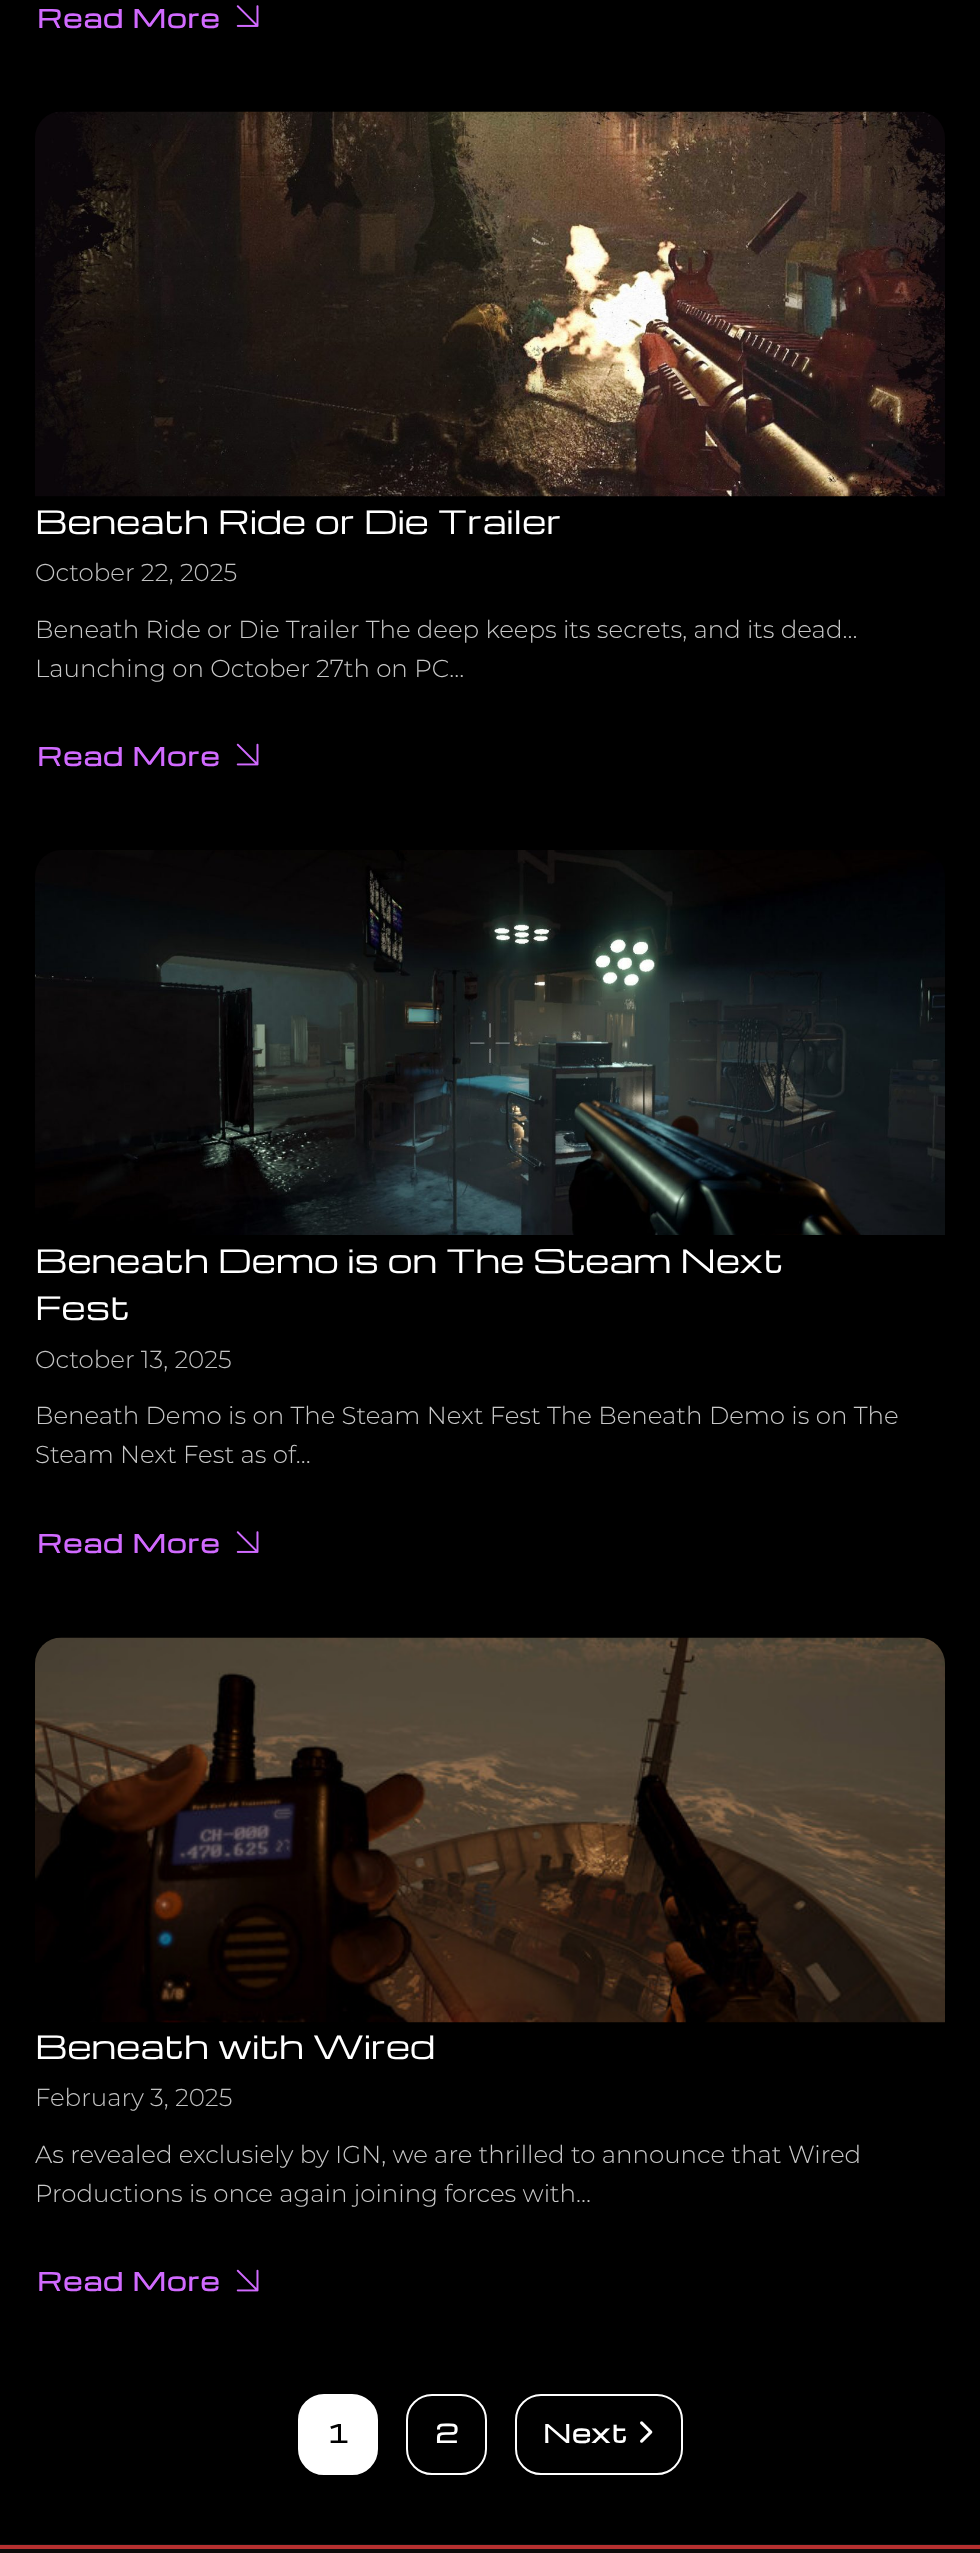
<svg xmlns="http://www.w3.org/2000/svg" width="980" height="2553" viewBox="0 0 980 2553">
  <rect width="100%" height="100%" fill="rgb(0,0,0)"/>
  <text x="37" y="28" font-family="Michroma" font-size="24.5" font-weight="bold" letter-spacing="1.25" fill="rgb(209,106,255)">Read More</text>
  <image x="236" y="5" width="23" height="22" href="pic1.png"/>
  <image x="35" y="111" width="910" height="386" href="pic2.png"/>
  <text x="35" y="534" font-family="Michroma" font-size="31.5" fill="rgb(255,255,255)">Beneath Ride or Die Trailer</text>
  <text x="35" y="581" font-family="Montserrat" font-size="24.5" font-weight="300" fill="rgb(194,194,194)">October 22, 2025</text>
  <g font-family="Montserrat" font-size="24.5" font-weight="300" fill="rgb(200,200,200)">
    <text>
      <tspan x="35" y="638">Beneath Ride or Die Trailer The deep keeps its secrets, and its dead…</tspan>
      <tspan x="35" y="677">Launching on October 27th on PC…</tspan>
    </text>
  </g>
  <text x="37" y="766" font-family="Michroma" font-size="24.5" font-weight="bold" letter-spacing="1.25" fill="rgb(209,106,255)">Read More</text>
  <image x="236" y="743" width="23" height="23" href="pic3.png"/>
  <image x="35" y="850" width="910" height="385" href="pic4.png"/>
  <g font-family="Michroma" font-size="31.5" fill="rgb(255,255,255)">
    <text>
      <tspan x="35" y="1273">Beneath Demo is on The Steam Next</tspan>
      <tspan x="35" y="1320">Fest</tspan>
    </text>
  </g>
  <text x="35" y="1368" font-family="Montserrat" font-size="24.5" font-weight="300" fill="rgb(194,194,194)">October 13, 2025</text>
  <g font-family="Montserrat" font-size="24.5" font-weight="300" fill="rgb(200,200,200)">
    <text>
      <tspan x="35" y="1424">Beneath Demo is on The Steam Next Fest The Beneath Demo is on The</tspan>
      <tspan x="35" y="1463">Steam Next Fest as of…</tspan>
    </text>
  </g>
  <text x="37" y="1553" font-family="Michroma" font-size="24.5" font-weight="bold" letter-spacing="1.25" fill="rgb(209,106,255)">Read More</text>
  <image x="236" y="1531" width="23" height="22" href="pic1.png"/>
  <image x="35" y="1637" width="910" height="386" href="pic5.png"/>
  <text x="35" y="2059" font-family="Michroma" font-size="31.5" fill="rgb(255,255,255)">Beneath with Wired</text>
  <text x="35" y="2106" font-family="Montserrat" font-size="24.5" font-weight="300" fill="rgb(194,194,194)">February 3, 2025</text>
  <g font-family="Montserrat" font-size="24.5" font-weight="300" fill="rgb(200,200,200)">
    <text>
      <tspan x="35" y="2163">As revealed exclusiely by IGN, we are thrilled to announce that Wired</tspan>
      <tspan x="35" y="2202">Productions is once again joining forces with…</tspan>
    </text>
  </g>
  <text x="37" y="2291" font-family="Michroma" font-size="24.5" font-weight="bold" letter-spacing="1.25" fill="rgb(209,106,255)">Read More</text>
  <image x="236" y="2269" width="23" height="23" href="pic3.png"/>
  <rect x="299" y="2395" width="78" height="79" rx="25" fill="rgb(255,255,255)" stroke="rgb(255,255,255)" stroke-width="2"/>
  <text x="326" y="2443" font-family="Michroma" font-size="24.5" font-weight="bold" letter-spacing="1.25" fill="rgb(0,0,0)">1</text>
  <rect x="407" y="2395" width="79" height="79" rx="25" fill="none" stroke="rgb(255,255,255)" stroke-width="2"/>
  <text x="435" y="2443" font-family="Michroma" font-size="24.5" font-weight="bold" letter-spacing="1.25" fill="rgb(255,255,255)">2</text>
  <rect x="516" y="2395" width="166" height="79" rx="25" fill="none" stroke="rgb(255,255,255)" stroke-width="2"/>
  <text x="543" y="2443" font-family="Michroma" font-size="24.5" font-weight="bold" letter-spacing="1.25" fill="rgb(255,255,255)">Next</text>
  <image x="640" y="2421" width="13" height="22" href="pic6.png"/>
  <rect x="0" y="2544" width="980" height="9" fill="rgb(12,11,11)"/>
  <rect x="0" y="2545" width="980" height="4" fill="rgb(181,48,48)"/>
</svg>
